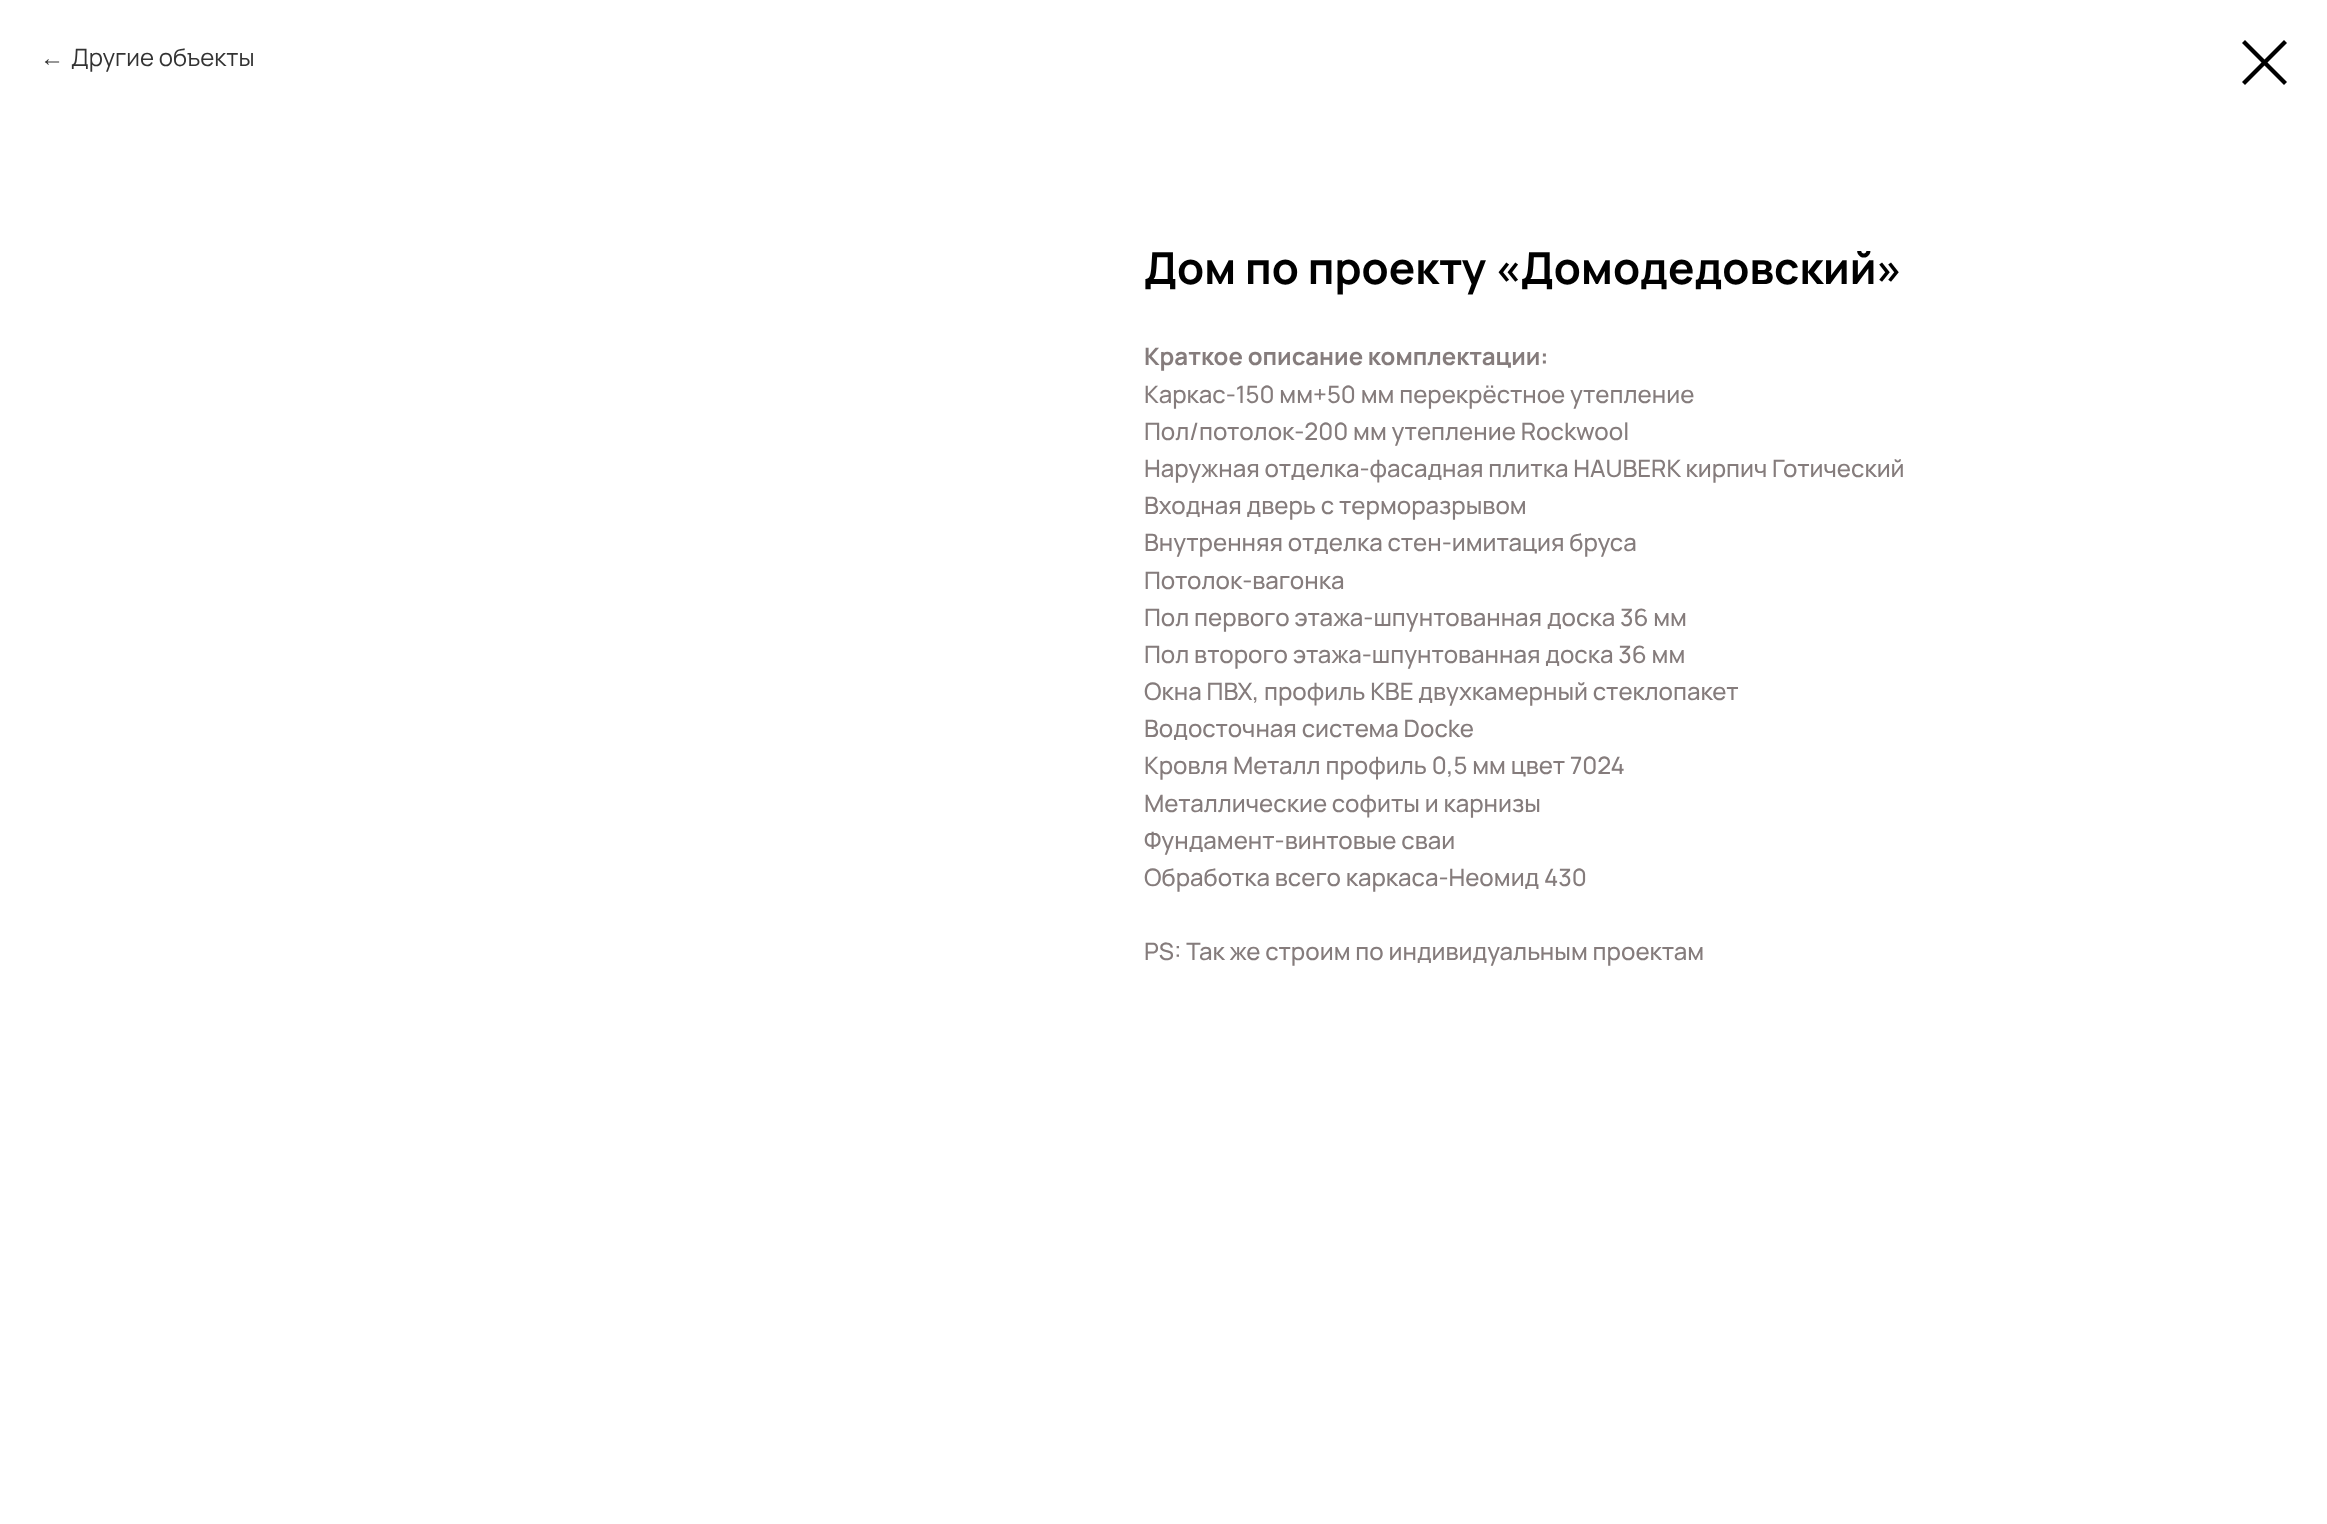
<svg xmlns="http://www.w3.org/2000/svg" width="2327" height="1524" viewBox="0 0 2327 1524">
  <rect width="100%" height="100%" fill="rgb(255,255,255)"/>
  <text x="40" y="66" font-family="Liberation Sans" font-size="24" fill="rgb(51,51,51)">←</text>
  <text x="71" y="66" font-family="Manrope" font-size="24" fill="rgb(51,51,51)">Другие объекты</text>
  <path d="M2242 43L2245 40L2287 82L2284 85Z" fill="rgb(0,0,0)" fill-rule="evenodd"/>
  <path d="M2284 40L2287 43L2245 85L2242 82Z" fill="rgb(0,0,0)" fill-rule="evenodd"/>
  <text x="1144" y="284" font-family="Manrope" font-size="44" font-weight="bold" fill="rgb(0,0,0)">Дом по проекту «Домодедовский»</text>
  <text x="1144" y="365" font-family="Manrope" font-size="24" font-weight="bold" fill="rgb(133,124,124)">Краткое описание комплектации:</text>
  <g font-family="Manrope" font-size="24" font-weight="500" fill="rgb(133,124,124)">
    <text>
      <tspan x="1144" y="403">Каркас-150 мм+50 мм перекрёстное утепление</tspan>
      <tspan x="1144" y="440">Пол/потолок-200 мм утепление Rockwool</tspan>
      <tspan x="1144" y="477">Наружная отделка-фасадная плитка HAUBERK кирпич Готический</tspan>
      <tspan x="1144" y="514">Входная дверь с терморазрывом</tspan>
      <tspan x="1144" y="551">Внутренняя отделка стен-имитация бруса</tspan>
      <tspan x="1144" y="589">Потолок-вагонка</tspan>
      <tspan x="1144" y="626">Пол первого этажа-шпунтованная доска 36 мм</tspan>
      <tspan x="1144" y="663">Пол второго этажа-шпунтованная доска 36 мм</tspan>
      <tspan x="1144" y="700">Окна ПВХ, профиль КВЕ двухкамерный стеклопакет</tspan>
      <tspan x="1144" y="737">Водосточная система Docke</tspan>
      <tspan x="1144" y="774">Кровля Металл профиль 0,5 мм цвет 7024</tspan>
      <tspan x="1144" y="812">Металлические софиты и карнизы</tspan>
      <tspan x="1144" y="849">Фундамент-винтовые сваи</tspan>
      <tspan x="1144" y="886">Обработка всего каркаса-Неомид 430</tspan>
    </text>
    <text x="1144" y="960">PS: Так же строим по индивидуальным проектам</text>
  </g>
</svg>
